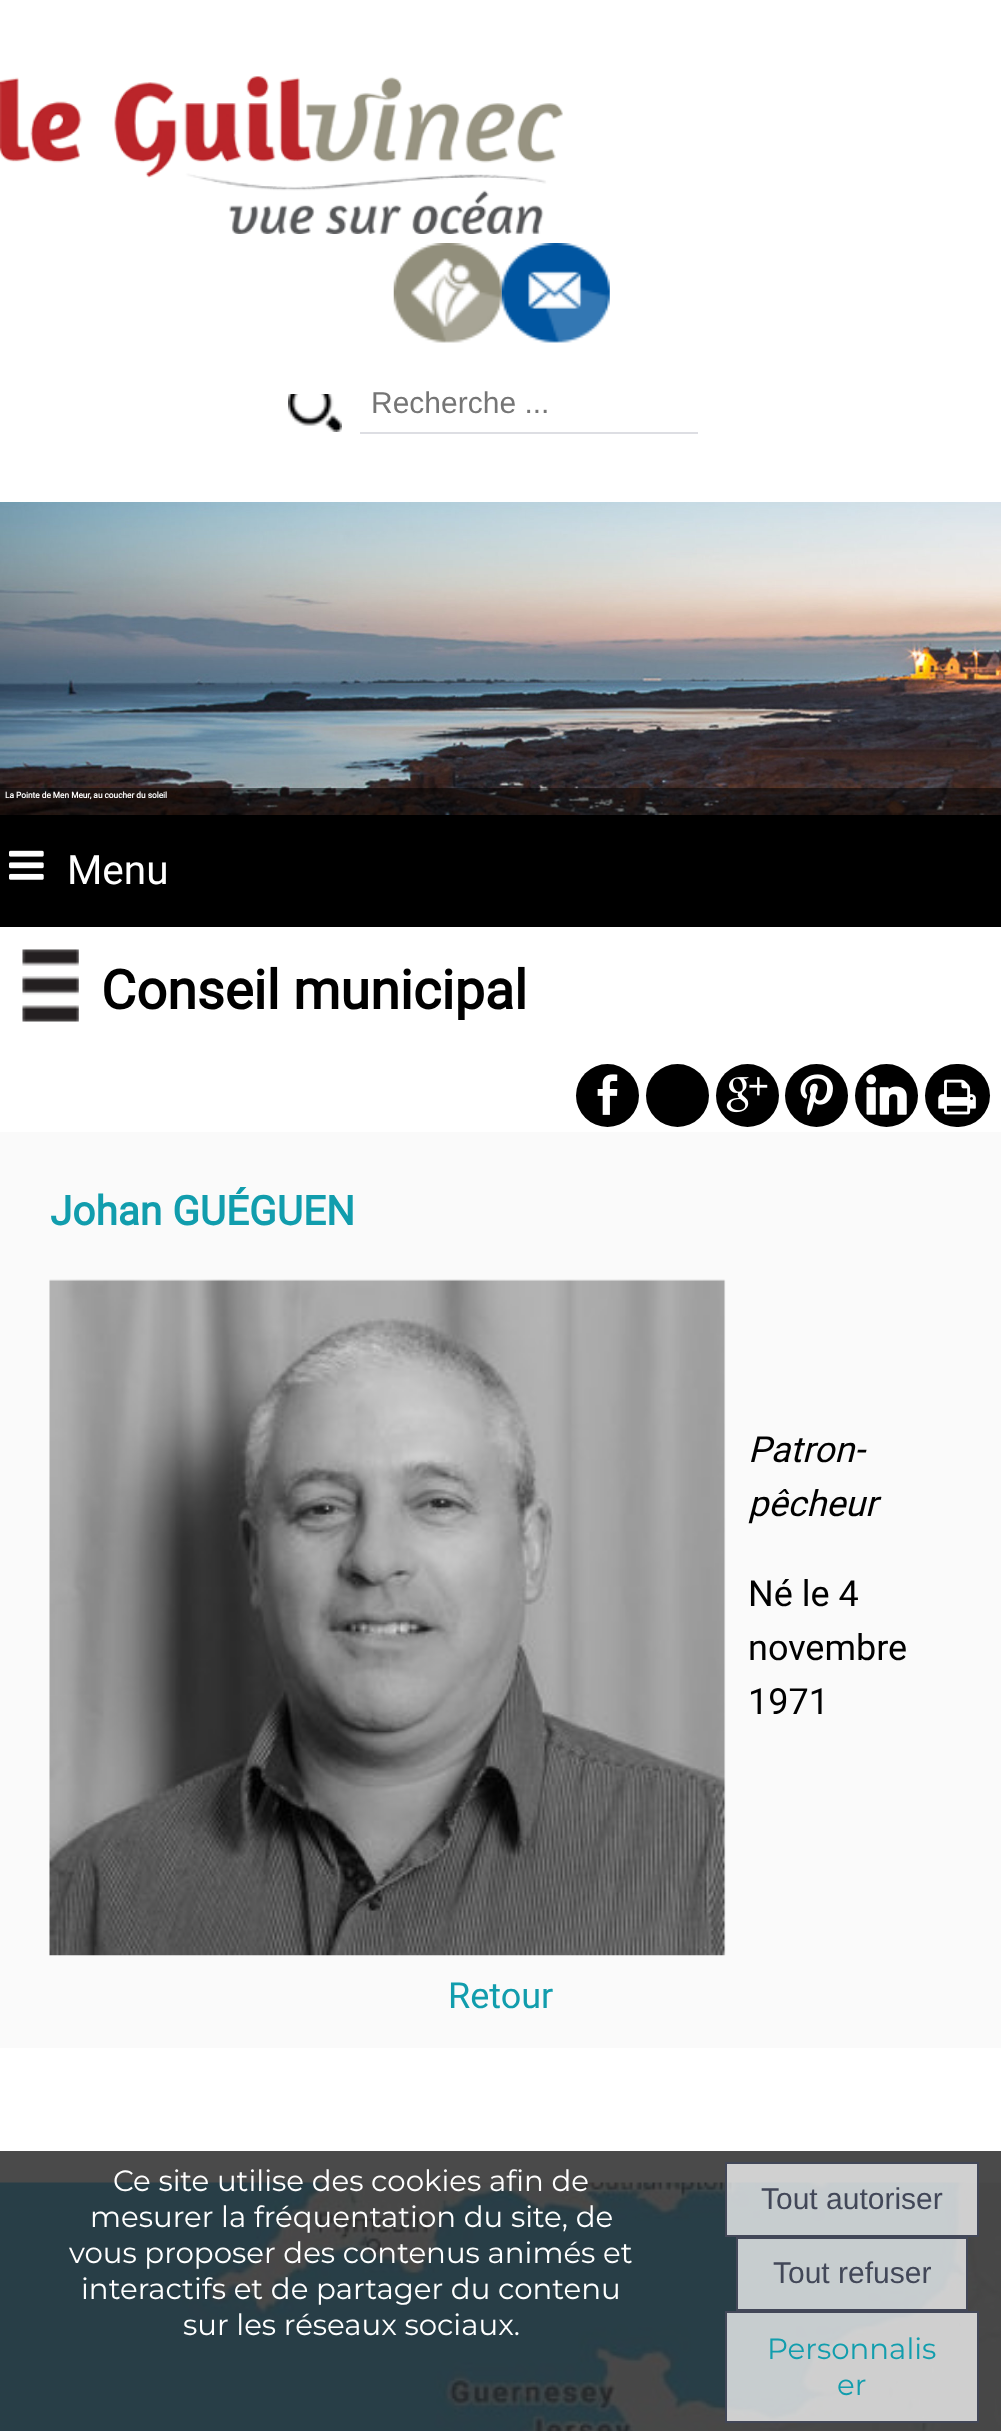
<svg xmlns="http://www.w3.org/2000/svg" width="1001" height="2431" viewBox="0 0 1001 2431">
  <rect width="100%" height="100%" fill="rgb(255,255,255)"/>
  <rect x="0" y="2151" width="1001" height="32" fill="rgb(74,74,74)"/>
  <image x="0" y="76" width="563" height="158" href="pic1.png"/>
  <image x="393" y="243" width="109" height="100" href="pic2.png"/>
  <image x="501" y="243" width="109" height="100" href="pic3.png"/>
  <image x="288" y="394" width="54" height="38" href="pic4.png"/>
  <rect x="360" y="432" width="338" height="2" fill="rgb(221,222,227)"/>
  <text x="371" y="413" font-family="Liberation Sans" font-size="30" fill="rgb(117,117,117)">Recherche ...</text>
  <image x="0" y="502" width="1001" height="313" href="pic5.png"/>
  <rect x="0" y="788" width="1001" height="27" fill="rgba(0,0,0,0.5)"/>
  <text x="5" y="798" font-family="Roboto" font-size="8.3" font-weight="bold" fill="rgb(255,255,255)">La Pointe de Men Meur, au coucher du soleil</text>
  <rect x="0" y="815" width="1001" height="112" fill="rgb(0,0,0)"/>
  <image x="9" y="850" width="35" height="30" href="pic6.png"/>
  <text x="67" y="884" font-family="Roboto" font-size="40.5" fill="rgb(255,255,255)">Menu</text>
  <image x="22" y="949" width="57" height="73" href="pic7.png"/>
  <text x="101" y="1009" font-family="Roboto" font-size="54" font-weight="bold" fill="rgb(0,0,0)">Conseil municipal</text>
  <circle cx="607.5" cy="1095.5" r="31.5" fill="rgb(0,0,0)"/>
  <image x="597" y="1074" width="21" height="41" href="pic8.png"/>
  <circle cx="677.5" cy="1095.5" r="31.5" fill="rgb(0,0,0)"/>
  <circle cx="747.5" cy="1095.5" r="31.5" fill="rgb(0,0,0)"/>
  <image x="726" y="1077" width="42" height="36" href="pic9.png"/>
  <circle cx="816.5" cy="1095.5" r="31.5" fill="rgb(0,0,0)"/>
  <image x="800" y="1074" width="33" height="41" href="pic10.png"/>
  <circle cx="886.5" cy="1095.5" r="31.5" fill="rgb(0,0,0)"/>
  <image x="866" y="1074" width="41" height="41" href="pic11.png"/>
  <rect x="925" y="1064" width="65" height="63" rx="31.5" fill="rgb(0,0,0)"/>
  <image x="938" y="1079" width="38" height="36" href="pic12.png"/>
  <rect x="0" y="1132" width="1001" height="916" fill="rgb(250,250,250)"/>
  <text x="50" y="1225" font-family="Roboto" font-size="40.5" font-weight="bold" fill="rgb(17,157,173)">Johan GUÉGUEN</text>
  <image x="49" y="1279" width="677" height="677" href="pic13.png"/>
  <g font-family="Roboto" font-size="36" font-style="italic" fill="rgb(0,0,0)">
    <text>
      <tspan x="748" y="1462">Patron-</tspan>
      <tspan x="748" y="1516">pêcheur</tspan>
    </text>
  </g>
  <g font-family="Roboto" font-size="36" fill="rgb(0,0,0)">
    <text>
      <tspan x="748" y="1606">Né le 4</tspan>
      <tspan x="748" y="1660">novembre</tspan>
      <tspan x="748" y="1714">1971</tspan>
    </text>
  </g>
  <text x="448" y="2008" font-family="Roboto" font-size="36" fill="rgb(17,157,173)">Retour</text>
  <image x="0" y="2182" width="1001" height="249" href="pic14.png"/>
  <g font-family="Montserrat" font-size="29.25" fill="rgb(255,255,255)">
    <text x="113" y="2191">Ce site utilise des cookies afin de</text>
    <text x="90" y="2227">mesurer la fréquentation du site, de</text>
    <text x="69" y="2263">vous proposer des contenus animés et</text>
    <text x="81" y="2299">interactifs et de partager du contenu</text>
    <text x="183" y="2335">sur les réseaux sociaux.</text>
  </g>
  <rect x="726" y="2163" width="252" height="73" fill="rgba(255,255,255,0.74)" stroke="rgb(66,71,88)" stroke-width="2"/>
  <text x="761" y="2209" font-family="Liberation Sans" font-size="30" fill="rgb(66,71,88)">Tout autoriser</text>
  <rect x="737" y="2238" width="230" height="72" fill="rgba(255,255,255,0.74)" stroke="rgb(66,71,88)" stroke-width="2"/>
  <text x="773" y="2283" font-family="Liberation Sans" font-size="30" fill="rgb(66,71,88)">Tout refuser</text>
  <rect x="726" y="2312" width="252" height="110" fill="rgba(255,255,255,0.74)" stroke="rgb(66,71,88)" stroke-width="2"/>
  <g font-family="Montserrat" font-size="29.25" fill="rgb(17,157,173)">
    <text x="767" y="2359">Personnalis</text>
    <text x="837" y="2395">er</text>
  </g>
</svg>
